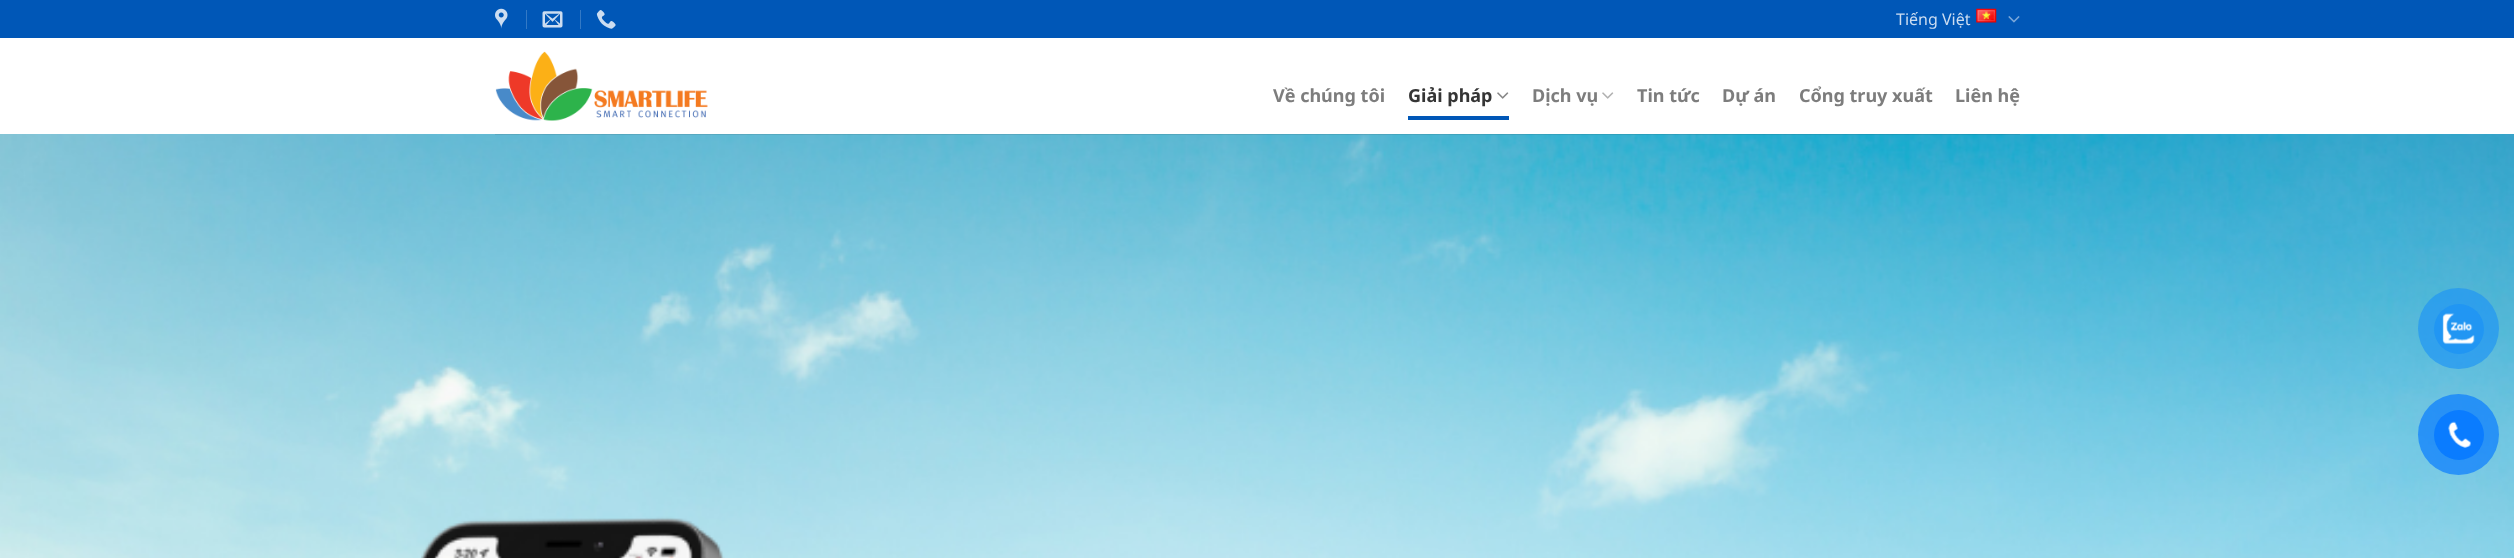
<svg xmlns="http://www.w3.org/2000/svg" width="2514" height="558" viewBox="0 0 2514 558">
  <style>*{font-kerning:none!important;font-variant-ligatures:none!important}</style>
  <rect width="100%" height="100%" fill="rgb(255,255,255)"/>
  <rect x="0" y="0" width="2514" height="38" fill="rgb(0,87,183)"/>
  <image x="495" y="8" width="13" height="21" href="pic1.png"/>
  <rect x="526" y="10" width="1" height="19" fill="rgb(51,121,197)"/>
  <image x="542" y="11" width="21" height="17" href="pic2.png"/>
  <rect x="580" y="10" width="1" height="19" fill="rgb(51,121,197)"/>
  <image x="596" y="10" width="20" height="19" href="pic3.png"/>
  <text x="1896" y="25" font-family="Noto Sans" font-size="16" fill="rgb(204,221,241)">Tiếng Việt</text>
  <image x="1976" y="8" width="21" height="15" href="pic4.png"/>
  <image x="2008" y="16" width="12" height="7" href="pic5.png"/>
  <image x="495" y="51" width="213" height="70" href="pic6.png"/>
  <text x="1273" y="102" font-family="Noto Sans" font-size="18" font-weight="bold" fill="rgb(125,125,125)">Về chúng tôi</text>
  <text x="1408" y="102" font-family="Noto Sans" font-size="18" font-weight="bold" fill="rgb(53,53,53)">Giải pháp</text>
  <image x="1497" y="92" width="12" height="7" href="pic7.png"/>
  <rect x="1408" y="116" width="101" height="4" fill="rgb(0,87,183)"/>
  <text x="1532" y="102" font-family="Noto Sans" font-size="18" font-weight="bold" fill="rgb(125,125,125)">Dịch vụ</text>
  <image x="1602" y="92" width="12" height="7" href="pic8.png"/>
  <g font-family="Noto Sans" font-size="18" font-weight="bold" fill="rgb(125,125,125)">
    <text x="1637" y="102">Tin tức</text>
    <text x="1722" y="102">Dự án</text>
    <text x="1799" y="102">Cổng truy xuất</text>
    <text x="1955" y="102">Liên hệ</text>
  </g>
  <image x="0" y="133" width="2514" height="425" href="pic9.png"/>
  <rect x="495" y="134" width="1525" height="1" fill="rgba(22,22,22,0.1)"/>
  <rect x="0" y="133" width="2514" height="1" fill="rgba(255,255,255,0.9)"/>
  <circle cx="2458.5" cy="328.5" r="40.5" fill="rgba(33,150,243,0.7)"/>
  <circle cx="2459" cy="329" r="25" fill="rgb(33,150,243)"/>
  <image x="2442" y="313" width="33" height="32" href="pic10.png"/>
  <circle cx="2458.5" cy="434.5" r="40.5" fill="rgba(10,124,255,0.7)"/>
  <circle cx="2459" cy="435" r="25" fill="rgb(10,124,255)"/>
  <image x="2448" y="421" width="23" height="27" href="pic11.png"/>
</svg>
